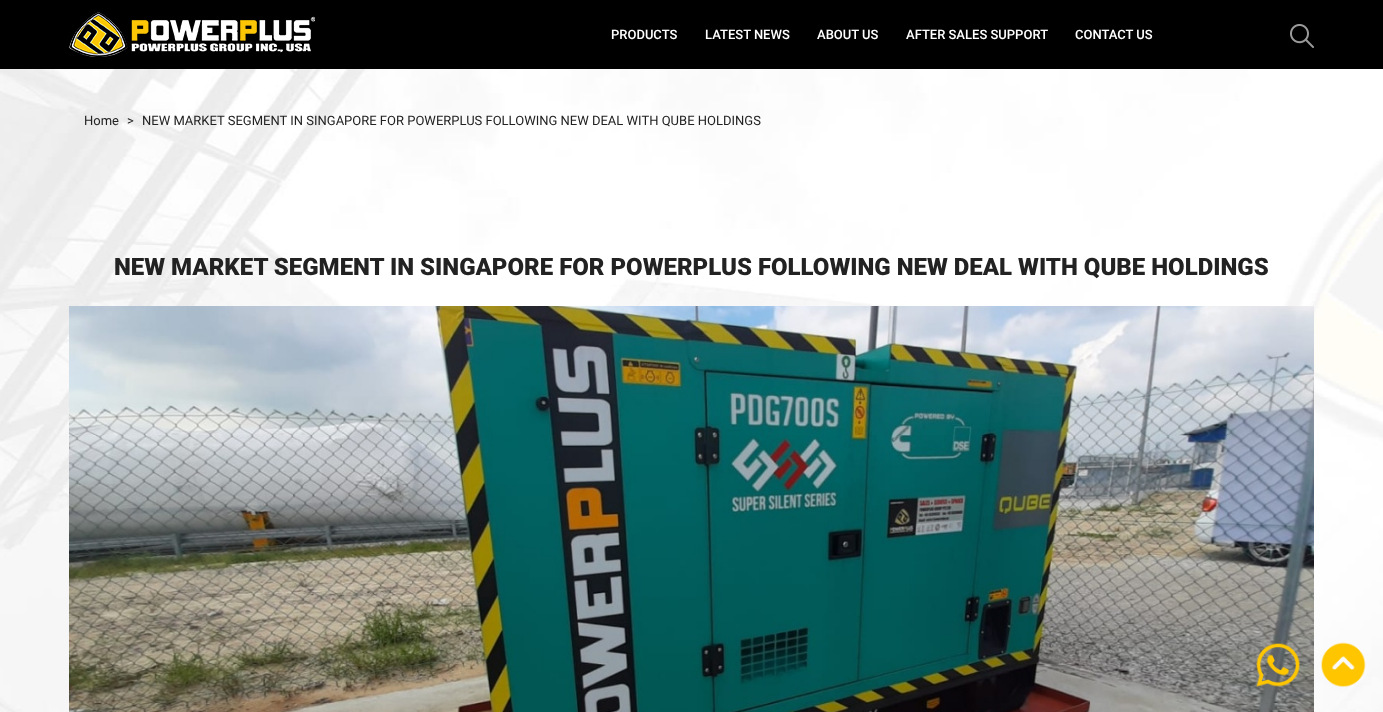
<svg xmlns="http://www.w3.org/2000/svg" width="1383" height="712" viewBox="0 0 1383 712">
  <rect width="100%" height="100%" fill="rgb(255,255,255)"/>
  <rect x="0" y="0" width="1383" height="69" fill="rgb(0,0,0)"/>
  <image x="69" y="12" width="246" height="45" href="pic1.png"/>
  <g font-family="Roboto" font-size="13" font-weight="500" fill="rgb(255,255,255)">
    <text x="611" y="39">PRODUCTS</text>
    <text x="705" y="39">LATEST NEWS</text>
    <text x="817" y="39">ABOUT US</text>
    <text x="906" y="39">AFTER SALES SUPPORT</text>
    <text x="1075" y="39">CONTACT US</text>
  </g>
  <image x="1290" y="24" width="24" height="24" href="pic2.png"/>
  <image x="0" y="69" width="1383" height="643" href="pic3.png"/>
  <g font-family="Roboto" font-size="13" fill="rgb(34,34,34)">
    <text x="84" y="125">Home</text>
    <text x="127" y="125">&gt;</text>
    <text x="142" y="125">NEW MARKET SEGMENT IN SINGAPORE FOR POWERPLUS FOLLOWING NEW DEAL WITH QUBE HOLDINGS</text>
  </g>
  <text x="114" y="275" font-family="Roboto" font-size="24" font-weight="900" fill="rgb(34,34,34)">NEW MARKET SEGMENT IN SINGAPORE FOR POWERPLUS FOLLOWING NEW DEAL WITH QUBE HOLDINGS</text>
  <image x="69" y="306" width="1245" height="406" href="pic4.png"/>
  <image x="1256" y="643" width="44" height="44" href="pic5.png"/>
  <image x="1321" y="642" width="45" height="45" href="pic6.png"/>
</svg>
